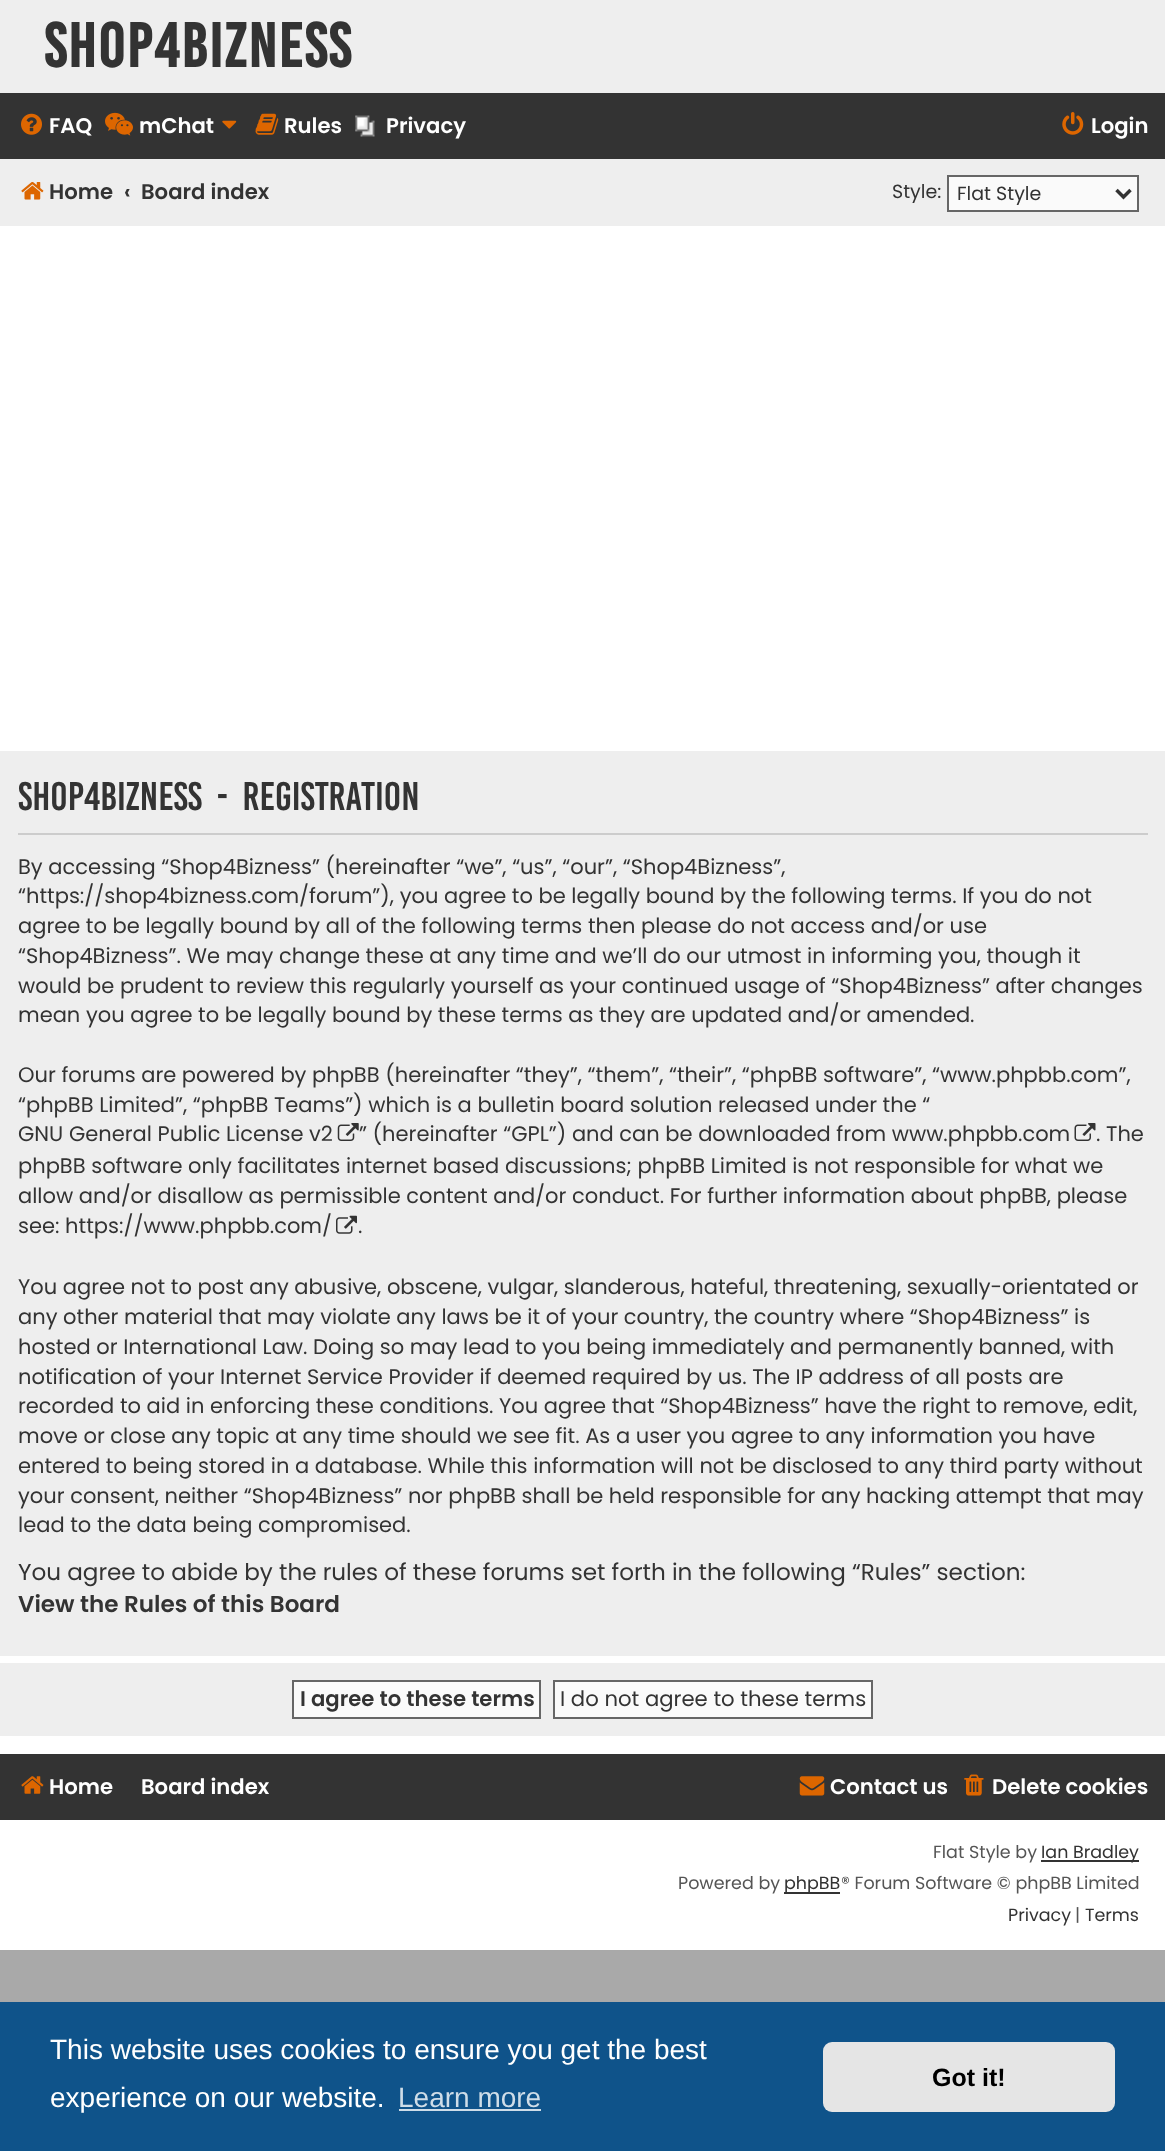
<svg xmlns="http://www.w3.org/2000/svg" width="1165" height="2151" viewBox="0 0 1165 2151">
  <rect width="100%" height="100%" fill="rgb(169,169,169)"/>
  <rect x="0" y="226" width="1165" height="1724" fill="rgb(255,255,255)"/>
  <rect x="0" y="0" width="1165" height="93" fill="rgb(238,238,238)"/>
  <text x="44" y="67" font-family="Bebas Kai" font-size="48" font-weight="bold" letter-spacing="1.75" fill="rgb(51,51,51)">Shop4Bizness</text>
  <rect x="0" y="93" width="1165" height="66" fill="rgb(51,51,51)"/>
  <image x="21" y="113" width="21" height="22" href="pic1.png"/>
  <text x="49" y="133" font-family="Poppins" font-size="21.2" font-weight="600" fill="rgb(255,255,255)">FAQ</text>
  <image x="105" y="112" width="28" height="24" href="pic2.png"/>
  <text x="139" y="133" font-family="Poppins" font-size="21.2" font-weight="600" fill="rgb(255,255,255)">mChat</text>
  <image x="222" y="120" width="15" height="9" href="pic3.png"/>
  <image x="255" y="113" width="24" height="22" href="pic4.png"/>
  <text x="284" y="133" font-family="Poppins" font-size="21.2" font-weight="600" fill="rgb(255,255,255)">Rules</text>
  <image x="355" y="115" width="20" height="22" href="pic5.png"/>
  <text x="386" y="133" font-family="Poppins" font-size="21.2" font-weight="600" fill="rgb(255,255,255)">Privacy</text>
  <image x="1062" y="112" width="22" height="23" href="pic6.png"/>
  <text x="1091" y="133" font-family="Poppins" font-size="21.2" font-weight="600" fill="rgb(255,255,255)">Login</text>
  <rect x="0" y="159" width="1165" height="67" fill="rgb(238,238,238)"/>
  <image x="21" y="182" width="23" height="18" href="pic7.png"/>
  <g font-family="Poppins" font-size="21.2" font-weight="600" fill="rgb(51,51,51)">
    <text x="49" y="199">Home</text>
    <text x="124" y="199">‹</text>
    <text x="141" y="199">Board index</text>
  </g>
  <text x="892" y="198" font-family="Poppins" font-size="19" fill="rgb(51,51,51)">Style:</text>
  <rect x="948" y="176" width="190" height="35" fill="rgb(250,250,250)" stroke="rgb(102,102,102)" stroke-width="2"/>
  <path d="M1116.5 190L1123.5 197L1130.5 190" fill="none" stroke="rgb(51,51,51)" stroke-width="3.5"/>
  <text x="957" y="200" font-family="Poppins" font-size="19" fill="rgb(51,51,51)">Flat Style</text>
  <rect x="0" y="751" width="1165" height="905" fill="rgb(238,238,238)"/>
  <rect x="18" y="833" width="1130" height="2" fill="rgb(204,204,204)"/>
  <text x="18" y="810" word-spacing="7" font-family="Bebas Kai" font-size="30.75" fill="rgb(51,51,51)">Shop4Bizness - Registration</text>
  <g font-family="Poppins" font-size="21" fill="rgb(51,51,51)">
    <text>
      <tspan x="18" y="874">By accessing “Shop4Bizness” (hereinafter “we”, “us”, “our”, “Shop4Bizness”,</tspan>
      <tspan x="18" y="903">“https://shop4bizness.com/forum”), you agree to be legally bound by the following terms. If you do not</tspan>
      <tspan x="18" y="933">agree to be legally bound by all of the following terms then please do not access and/or use</tspan>
      <tspan x="18" y="963">“Shop4Bizness”. We may change these at any time and we’ll do our utmost in informing you, though it</tspan>
      <tspan x="18" y="993">would be prudent to review this regularly yourself as your continued usage of “Shop4Bizness” after changes</tspan>
      <tspan x="18" y="1022">mean you agree to be legally bound by these terms as they are updated and/or amended.</tspan>
    </text>
    <text>
      <tspan x="18" y="1082">Our forums are powered by phpBB (hereinafter “they”, “them”, “their”, “phpBB software”, “www.phpbb.com”,</tspan>
      <tspan x="18" y="1112">“phpBB Limited”, “phpBB Teams”) which is a bulletin board solution released under the “</tspan>
      <tspan x="18" y="1141">GNU General Public License v2</tspan>
    </text>
  </g>
  <image x="337" y="1123" width="22" height="18" href="pic8.png"/>
  <text x="359" y="1141" font-family="Poppins" font-size="21" fill="rgb(51,51,51)">” (hereinafter “GPL”) and can be downloaded from www.phpbb.com</text>
  <image x="1074" y="1123" width="22" height="18" href="pic9.png"/>
  <g font-family="Poppins" font-size="21" fill="rgb(51,51,51)">
    <text x="1096" y="1141">. The</text>
    <text>
      <tspan x="18" y="1173">phpBB software only facilitates internet based discussions; phpBB Limited is not responsible for what we</tspan>
      <tspan x="18" y="1203">allow and/or disallow as permissible content and/or conduct. For further information about phpBB, please</tspan>
      <tspan x="18" y="1233">see: https://www.phpbb.com/</tspan>
    </text>
  </g>
  <image x="336" y="1215" width="21" height="19" href="pic10.png"/>
  <g font-family="Poppins" font-size="21" fill="rgb(51,51,51)">
    <text x="358" y="1233">.</text>
    <text>
      <tspan x="18" y="1294">You agree not to post any abusive, obscene, vulgar, slanderous, hateful, threatening, sexually-orientated or</tspan>
      <tspan x="18" y="1324">any other material that may violate any laws be it of your country, the country where “Shop4Bizness” is</tspan>
      <tspan x="18" y="1354">hosted or International Law. Doing so may lead to you being immediately and permanently banned, with</tspan>
      <tspan x="18" y="1384">notification of your Internet Service Provider if deemed required by us. The IP address of all posts are</tspan>
      <tspan x="18" y="1413">recorded to aid in enforcing these conditions. You agree that “Shop4Bizness” have the right to remove, edit,</tspan>
      <tspan x="18" y="1443">move or close any topic at any time should we see fit. As a user you agree to any information you have</tspan>
      <tspan x="18" y="1473">entered to being stored in a database. While this information will not be disclosed to any third party without</tspan>
      <tspan x="18" y="1503">your consent, neither “Shop4Bizness” nor phpBB shall be held responsible for any hacking attempt that may</tspan>
      <tspan x="18" y="1532">lead to the data being compromised.</tspan>
    </text>
  </g>
  <text x="18" y="1580" font-family="Poppins" font-size="23.1" fill="rgb(51,51,51)">You agree to abide by the rules of these forums set forth in the following “Rules” section:</text>
  <text x="18" y="1612" font-family="Poppins" font-size="23.1" font-weight="600" fill="rgb(51,51,51)">View the Rules of this Board</text>
  <rect x="0" y="1663" width="1165" height="73" fill="rgb(238,238,238)"/>
  <rect x="293" y="1681" width="247" height="37" fill="rgb(250,250,250)" stroke="rgb(102,102,102)" stroke-width="2"/>
  <text x="300" y="1706" font-family="Poppins" font-size="21.2" font-weight="600" fill="rgb(51,51,51)">I agree to these terms</text>
  <rect x="554" y="1681" width="318" height="37" fill="rgb(250,250,250)" stroke="rgb(102,102,102)" stroke-width="2"/>
  <text x="560" y="1706" font-family="Poppins" font-size="21.2" fill="rgb(51,51,51)">I do not agree to these terms</text>
  <rect x="0" y="1754" width="1165" height="66" fill="rgb(51,51,51)"/>
  <image x="21" y="1776" width="23" height="18" href="pic11.png"/>
  <g font-family="Poppins" font-size="21.2" font-weight="600" fill="rgb(255,255,255)">
    <text x="49" y="1794">Home</text>
    <text x="141" y="1794">Board index</text>
  </g>
  <image x="799" y="1776" width="26" height="20" href="pic12.png"/>
  <text x="830" y="1794" font-family="Poppins" font-size="21.2" font-weight="600" fill="rgb(255,255,255)">Contact us</text>
  <image x="964" y="1774" width="20" height="22" href="pic13.png"/>
  <text x="992" y="1794" font-family="Poppins" font-size="21.2" font-weight="600" fill="rgb(255,255,255)">Delete cookies</text>
  <text x="933" y="1858" font-family="Poppins" font-size="17.5" fill="rgb(85,85,85)">Flat Style by</text>
  <rect x="1041" y="1860" width="98" height="2" fill="rgb(51,51,51)"/>
  <text x="1041" y="1858" font-family="Poppins" font-size="17.5" fill="rgb(51,51,51)">Ian Bradley</text>
  <text x="678" y="1889" font-family="Poppins" font-size="17.5" fill="rgb(85,85,85)">Powered by</text>
  <rect x="784" y="1892" width="56" height="2" fill="rgb(51,51,51)"/>
  <text x="784" y="1889" font-family="Poppins" font-size="17.5" fill="rgb(51,51,51)">phpBB</text>
  <text x="841" y="1889" font-family="Poppins" font-size="17.5" fill="rgb(85,85,85)">® Forum Software © phpBB Limited</text>
  <text x="1008" y="1921" font-family="Poppins" font-size="17.5" fill="rgb(51,51,51)">Privacy</text>
  <text x="1075" y="1921" font-family="Poppins" font-size="17.5" fill="rgb(85,85,85)">|</text>
  <text x="1085" y="1921" font-family="Poppins" font-size="17.5" fill="rgb(51,51,51)">Terms</text>
  <rect x="0" y="2002" width="1165" height="149" fill="rgb(15,83,138)"/>
  <g font-family="Liberation Sans" font-size="28" fill="rgb(255,255,255)">
    <text>
      <tspan x="50" y="2059">This website uses cookies to ensure you get the best</tspan>
      <tspan x="50" y="2107">experience on our website.</tspan>
    </text>
  </g>
  <text x="398" y="2107" font-family="Liberation Sans" font-size="28" fill="rgb(207,221,232)">Learn more</text>
  <rect x="399" y="2109" width="142" height="2" fill="rgb(207,221,232)"/>
  <rect x="823" y="2042" width="292" height="70" rx="9" fill="rgb(229,229,229)"/>
  <text x="932" y="2086" font-family="Liberation Sans" font-size="25" font-weight="bold" fill="rgb(0,0,0)">Got it!</text>
</svg>
